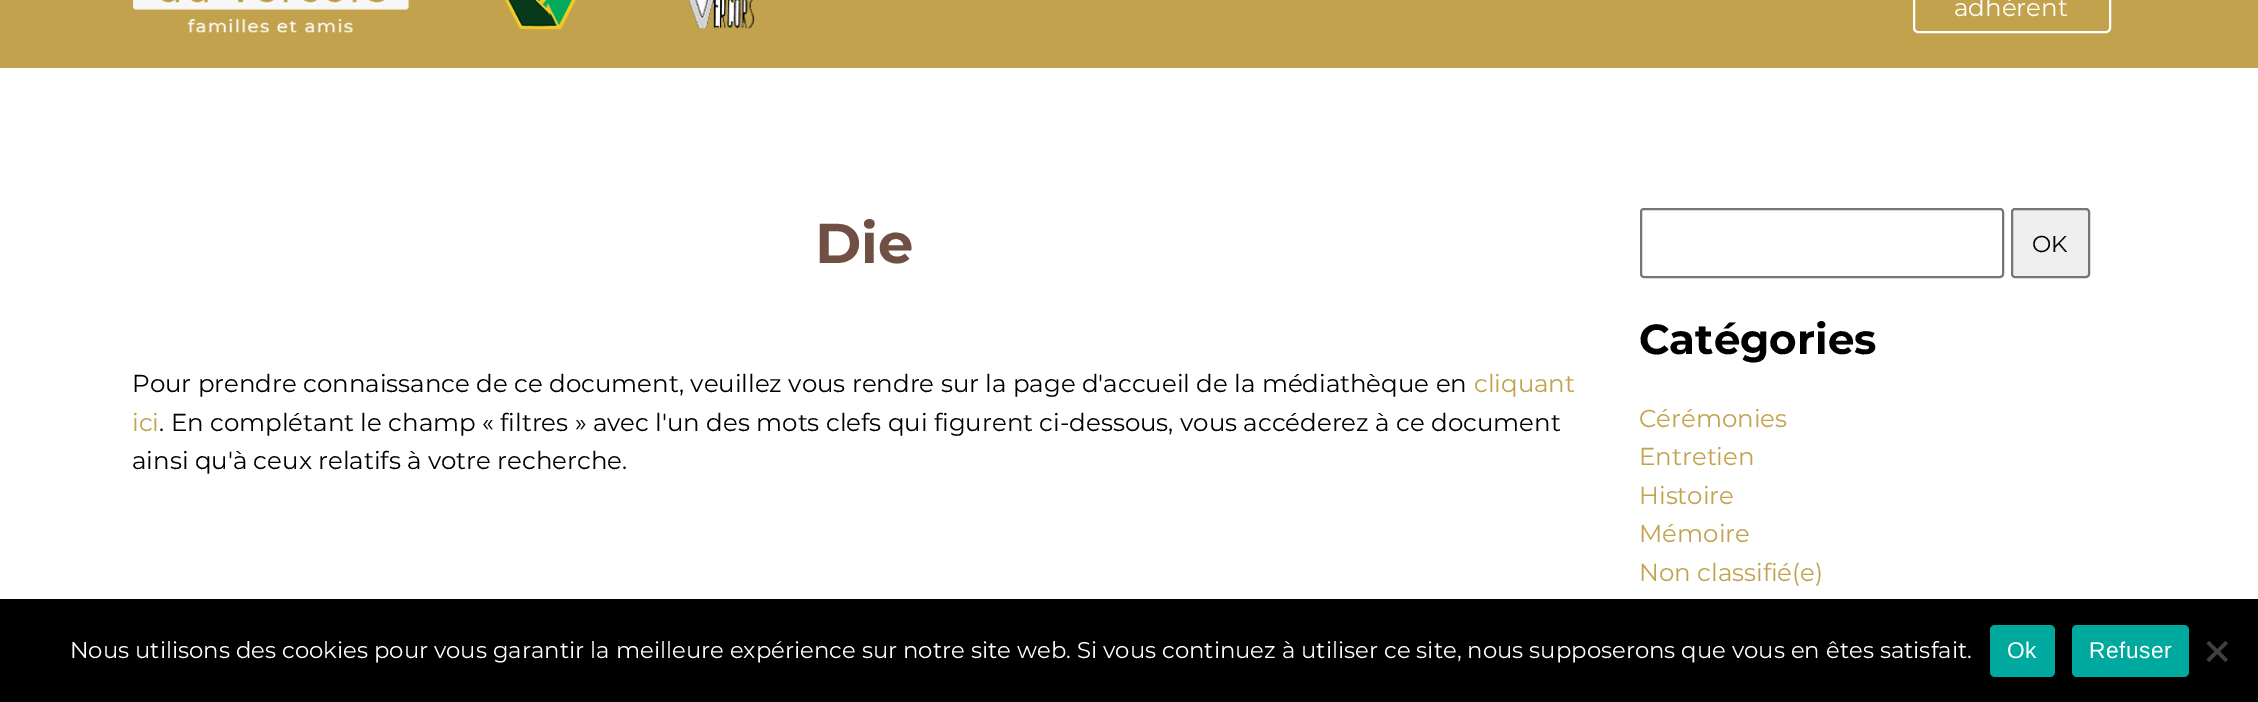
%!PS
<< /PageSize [2258 702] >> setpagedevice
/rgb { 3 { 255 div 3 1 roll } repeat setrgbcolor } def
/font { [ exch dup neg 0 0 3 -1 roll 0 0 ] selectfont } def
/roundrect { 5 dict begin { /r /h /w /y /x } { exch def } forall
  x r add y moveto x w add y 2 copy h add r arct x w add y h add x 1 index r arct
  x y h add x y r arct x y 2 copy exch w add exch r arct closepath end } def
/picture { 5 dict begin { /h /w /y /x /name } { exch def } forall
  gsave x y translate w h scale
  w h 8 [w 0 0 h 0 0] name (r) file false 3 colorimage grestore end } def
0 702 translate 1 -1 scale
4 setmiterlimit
255 255 255 rgb
0 0 2258 702 rectfill
194 162 77 rgb
0 0 2258 68 rectfill
(img/1.rgb) 133 0 622 33 picture
255 255 255 rgb
2 setlinewidth
1914 -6 196 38 4 roundrect stroke
118 118 118 rgb
1641 209 362 68 3 roundrect stroke
239 239 239 rgb
2012 209 77 68 3 roundrect gsave fill grestore
118 118 118 rgb
stroke
0 0 0 rgb
0 599 2258 103 rectfill
0 169 157 rgb
1990 625 65 52 5 roundrect fill
2072 625 117 52 5 roundrect fill
64 64 64 rgb
2225.5 641 moveto 2228 643.5 lineto 2209 662 lineto 2206.5 659.5 lineto closepath fill
2206.5 643.5 moveto 2209 641 lineto 2228 659.5 lineto 2225.5 662 lineto closepath fill
/Montserrat-Regular 24.5 font
255 255 255 rgb
1954 16 moveto (adhérent) show
/Montserrat-Bold 56 font
112 80 69 rgb
815 263 moveto (Die) show
/Montserrat-Regular 24.5 font
0 0 0 rgb
132 392 moveto (Pour prendre connaissance de ce document, veuillez vous rendre sur la page d'accueil de la médiathèque en) show
194 162 77 rgb
1474 392 moveto (cliquant) show
132 431 moveto (ici) show
0 0 0 rgb
159 431 moveto (. En complétant le champ « filtres » avec l'un des mots clefs qui figurent ci-dessous, vous accéderez à ce document) show
132 469 moveto (ainsi qu'à ceux relatifs à votre recherche.) show
/Montserrat-Regular 23 font
2032 252 moveto (OK) show
/Montserrat-Bold 42 font
1639 354 moveto (Catégories) show
/Montserrat-Regular 24.5 font
194 162 77 rgb
[
  [(Cérémonies) 1639 427]
  [(Entretien) 1639 465]
  [(Histoire) 1639 504]
  [(Mémoire) 1639 542]
  [(Non classifié\(e\)) 1639 581]
] { aload pop moveto show } forall
/Montserrat-Regular 22.75 font
255 255 255 rgb
70 658 moveto (Nous utilisons des cookies pour vous garantir la meilleure expérience sur notre site web. Si vous continuez à utiliser ce site, nous supposerons que vous en êtes satisfait.) show
/LiberationSans-Regular 22.75 font
2007 658 moveto 0.5 0 (Ok) ashow
2089 658 moveto 0.5 0 (Refuser) ashow
showpage
